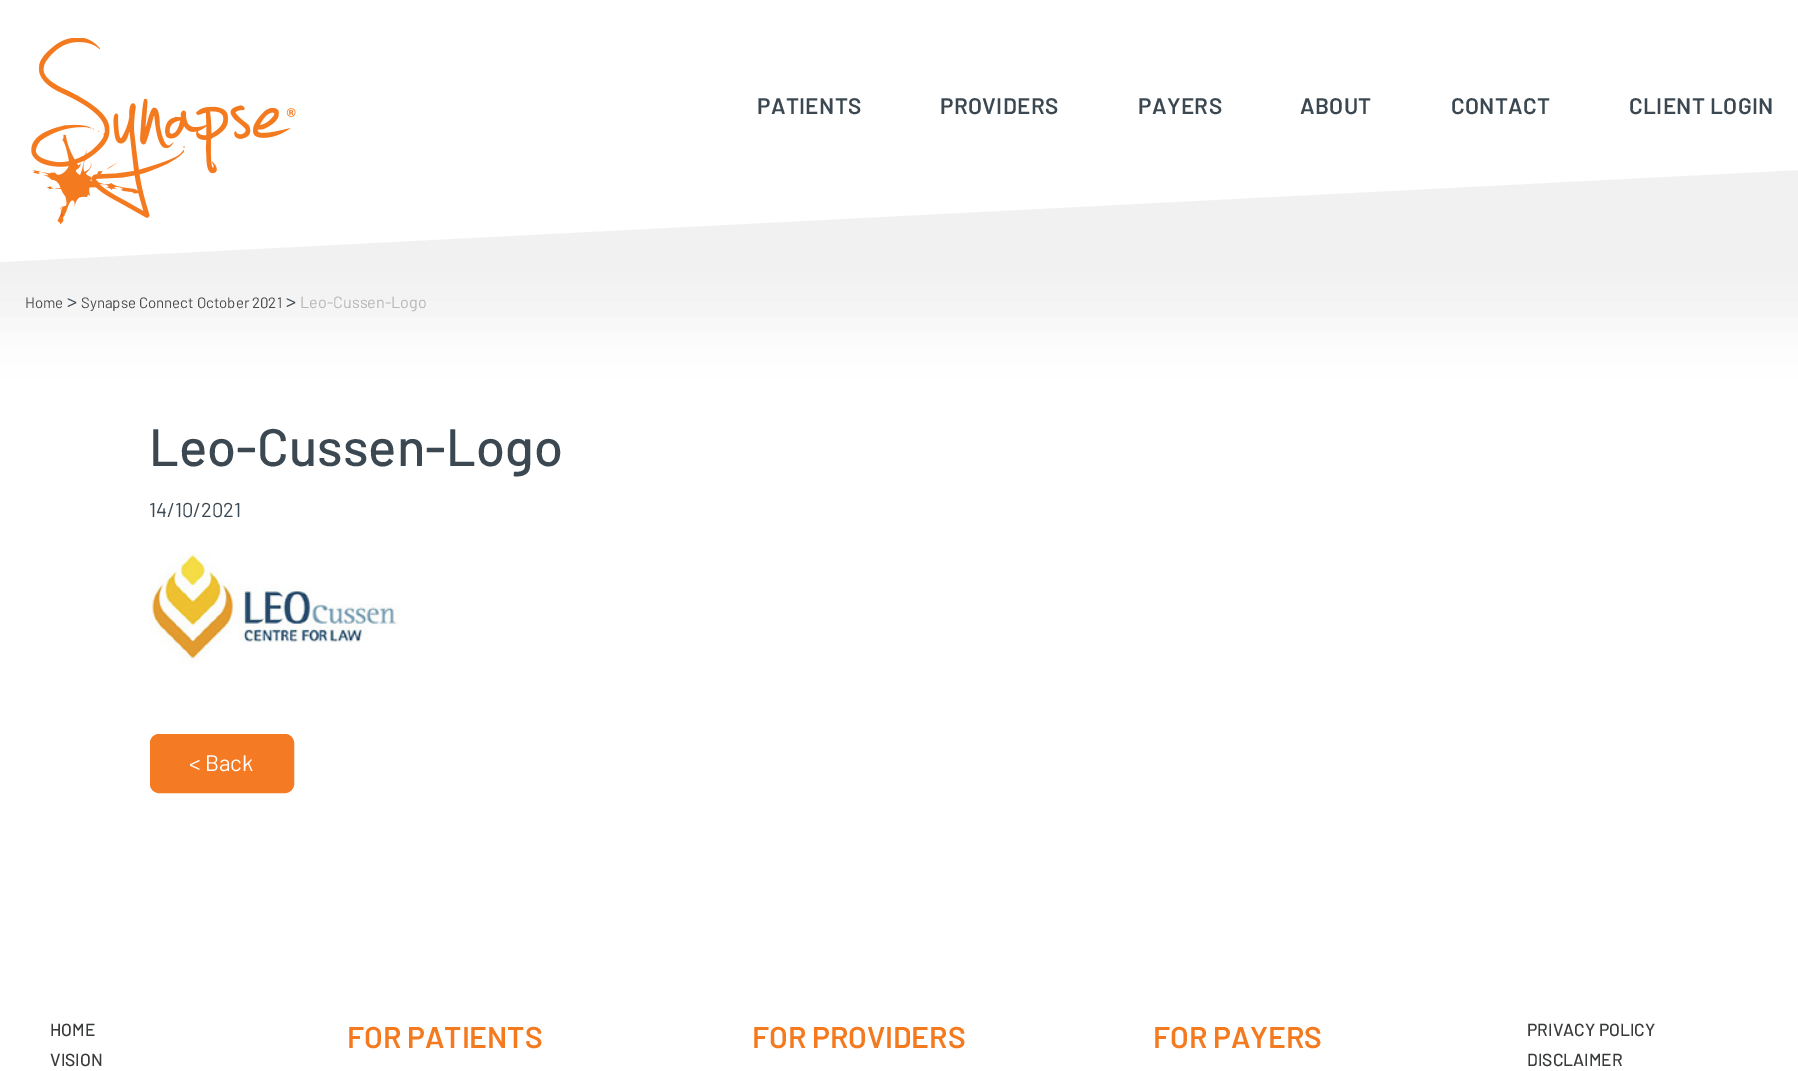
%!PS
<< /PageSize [1798 1071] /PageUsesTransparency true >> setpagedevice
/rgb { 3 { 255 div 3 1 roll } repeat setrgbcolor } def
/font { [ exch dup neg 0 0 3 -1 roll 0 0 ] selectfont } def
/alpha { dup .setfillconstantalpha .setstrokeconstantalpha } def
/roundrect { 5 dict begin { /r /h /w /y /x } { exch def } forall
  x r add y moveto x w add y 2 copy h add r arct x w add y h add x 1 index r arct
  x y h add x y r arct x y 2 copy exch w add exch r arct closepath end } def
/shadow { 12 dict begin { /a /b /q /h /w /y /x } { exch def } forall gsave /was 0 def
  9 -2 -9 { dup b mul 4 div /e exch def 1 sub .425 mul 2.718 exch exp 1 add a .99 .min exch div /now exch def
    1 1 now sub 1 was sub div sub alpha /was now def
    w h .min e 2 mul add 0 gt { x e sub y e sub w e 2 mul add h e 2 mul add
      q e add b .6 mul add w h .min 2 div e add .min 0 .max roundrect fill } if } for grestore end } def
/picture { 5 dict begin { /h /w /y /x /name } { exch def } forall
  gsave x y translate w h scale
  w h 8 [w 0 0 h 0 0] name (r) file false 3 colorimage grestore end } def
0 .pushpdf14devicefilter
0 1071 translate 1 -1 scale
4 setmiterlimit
255 255 255 rgb
0 0 1798 1071 rectfill
0 0 0 rgb
-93 -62 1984 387 0 31 0.05 shadow
255 255 255 rgb
0 0 1798 138 rectfill
0 138 moveto 0 262 lineto 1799 170 lineto 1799 138 lineto closepath fill
(img/1.rgb) 31 38 265 187 picture
(img/2.rgb) 150 552 250 112 picture
244 122 35 rgb
150.5 734.5 143 58 8.5 roundrect gsave fill grestore
stroke
/Barlow-SemiBold 22.5 font
59 72 82 rgb
757 114 moveto 0.4 0 (PATIENTS) ashow
940 114 moveto 0.4 0 (PROVIDERS) ashow
1138 114 moveto 0.4 0 (PAYERS) ashow
1300 114 moveto 0.4 0 (ABOUT) ashow
1451 114 moveto 0.4 0 (CONTACT) ashow
1629 114 moveto 0.4 0 (CLIENT LOGIN) ashow
/Barlow-Regular 15 font
74 74 74 rgb
25 308 moveto (Home) show
/Barlow-Regular 20 font
59 72 82 rgb
67 308 moveto (>) show
/Barlow-Regular 15 font
74 74 74 rgb
81 308 moveto (Synapse Connect October 2021) show
/Barlow-Regular 20 font
59 72 82 rgb
286 308 moveto (>) show
/Barlow-Regular 16.25 font
183 183 183 rgb
300 308 moveto (Leo-Cussen-Logo) show
/Barlow-Medium 52.5 font
59 72 82 rgb
149 466 moveto (Leo-Cussen-Logo) show
/Barlow-Regular 20 font
149 517 moveto (14/10/2021) show
/Barlow-Regular 22.5 font
255 255 255 rgb
189 771 moveto (< Back) show
/Barlow-Medium 17.5 font
57 58 59 rgb
50 1036 moveto (HOME) show
50 1066 moveto (VISION) show
/Barlow-SemiBold 30 font
244 122 32 rgb
[
  [(FOR PATIENTS) 347 1048]
  [(FOR PROVIDERS) 752 1048]
  [(FOR PAYERS) 1153 1048]
] { aload pop moveto show } forall
/Barlow-Medium 17.5 font
57 58 59 rgb
1527 1036 moveto (PRIVACY POLICY) show
1527 1066 moveto (DISCLAIMER) show
.poppdf14devicefilter showpage
